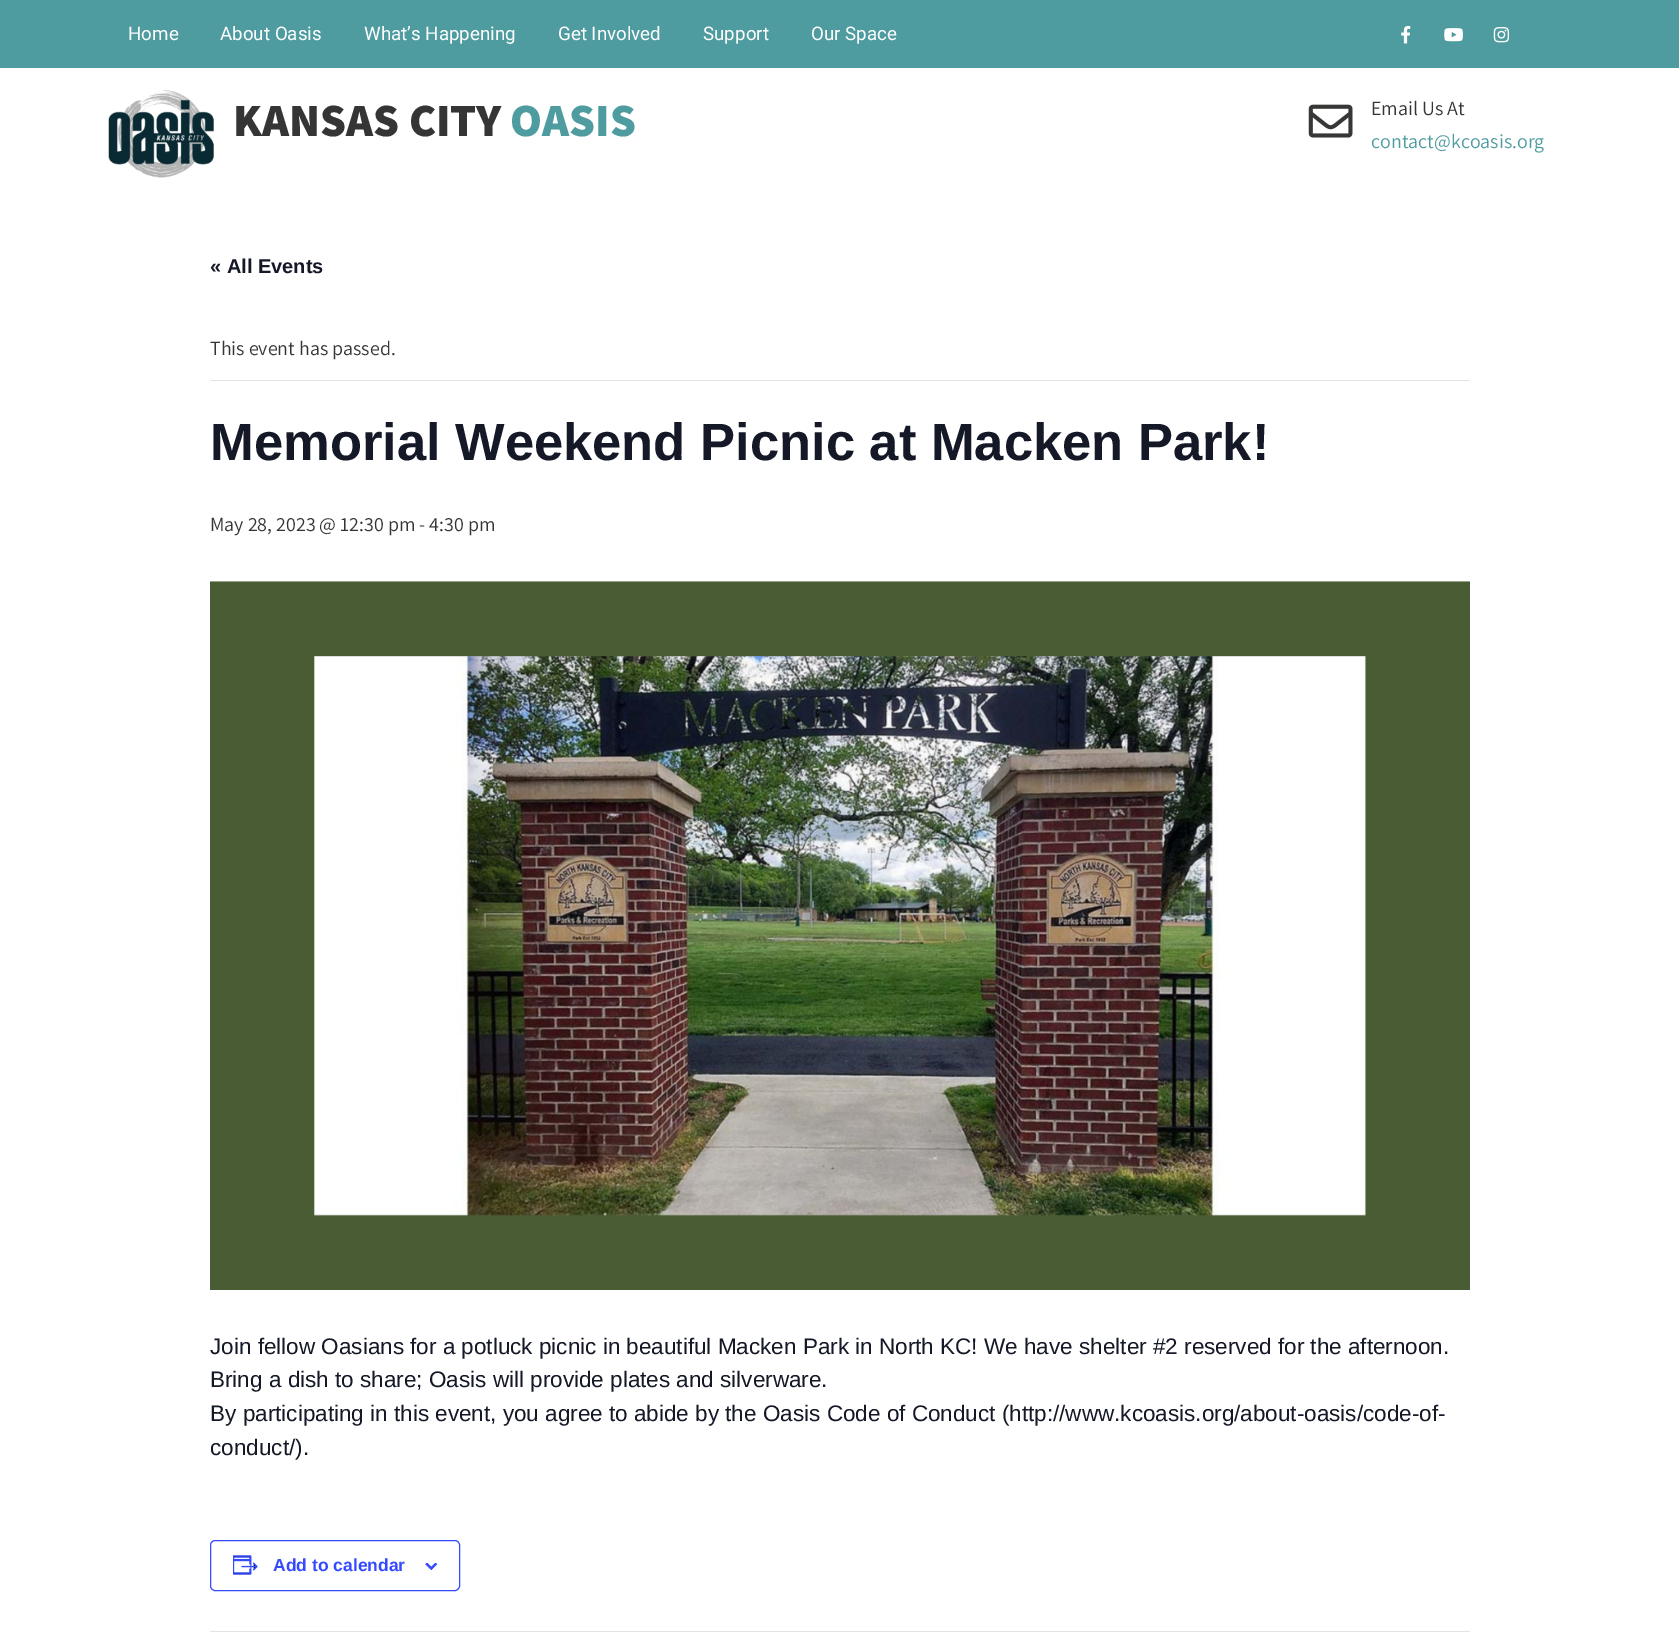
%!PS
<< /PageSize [1679 1647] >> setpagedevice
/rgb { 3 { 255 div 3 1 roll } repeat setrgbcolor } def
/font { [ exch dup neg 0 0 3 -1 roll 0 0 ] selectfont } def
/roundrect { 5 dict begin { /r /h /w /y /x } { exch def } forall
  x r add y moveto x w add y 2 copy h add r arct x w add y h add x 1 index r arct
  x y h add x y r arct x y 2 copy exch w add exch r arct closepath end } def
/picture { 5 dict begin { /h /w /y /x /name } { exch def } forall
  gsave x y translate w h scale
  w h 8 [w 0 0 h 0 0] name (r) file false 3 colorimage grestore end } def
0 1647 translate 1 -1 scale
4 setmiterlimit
255 255 255 rgb
0 0 1679 1647 rectfill
78 156 160 rgb
0 0 1679 68 rectfill
(img/1.rgb) 1401 25 10 19 picture
(img/2.rgb) 1444 28 19 14 picture
(img/3.rgb) 1493 27 17 16 picture
(img/4.rgb) 108 90 106 88 picture
(img/5.rgb) 1308 104 45 34 picture
228 228 228 rgb
210 380 1260 1 rectfill
(img/6.rgb) 210 581 1260 709 picture
51 74 255 rgb
210.5 1540.5 249 50 4.5 roundrect stroke
(img/7.rgb) 233 1555 25 20 picture
(img/8.rgb) 425 1563 13 7 picture
228 228 228 rgb
210 1631 1260 1 rectfill
/Roboto-Regular 18.75 font
255 255 255 rgb
[
  [(Home) 128 40]
  [(About Oasis) 220 40]
  [(What’s Happening) 364 40]
  [(Get Involved) 558 40]
  [(Support) 703 40]
  [(Our Space) 811 40]
] { aload pop moveto show } forall
/Assistant-ExtraBold 46.25 font
53 53 53 rgb
233 136 moveto (KANSAS CITY) show
78 156 160 rgb
510 136 moveto (OASIS) show
/Assistant-ExtraLight 20 font
53 53 53 rgb
1371 115 moveto (Email Us At) show
78 156 160 rgb
1371 148 moveto (contact@kcoasis.org) show
/LiberationSans-Bold 20 font
20 24 39 rgb
210 273 moveto (« All Events) show
/Assistant-ExtraLight 20 font
53 53 53 rgb
210 355 moveto (This event has passed.) show
/LiberationSans-Bold 52.5 font
20 24 39 rgb
210 460 moveto (Memorial Weekend Picnic at Macken Park!) show
/Assistant-ExtraLight 20 font
53 53 53 rgb
210 531 moveto (May 28, 2023 @ 12:30 pm - 4:30 pm) show
/LiberationSans-Regular 22.5 font
20 24 39 rgb
[
  [(Join fellow Oasians for a potluck picnic in beautiful Macken Park in North KC! We have shelter #2 reserved for the afternoon.) 210 1354]
  [(Bring a dish to share; Oasis will provide plates and silverware.) 210 1387]
  [(By participating in this event, you agree to abide by the Oasis Code of Conduct \(http://www.kcoasis.org/about-oasis/code-of-) 210 1421]
  [(conduct/\).) 210 1455]
] { aload pop moveto show } forall
/LiberationSans-Bold 17.5 font
51 74 255 rgb
273 1571 moveto (Add to calendar) show
showpage
